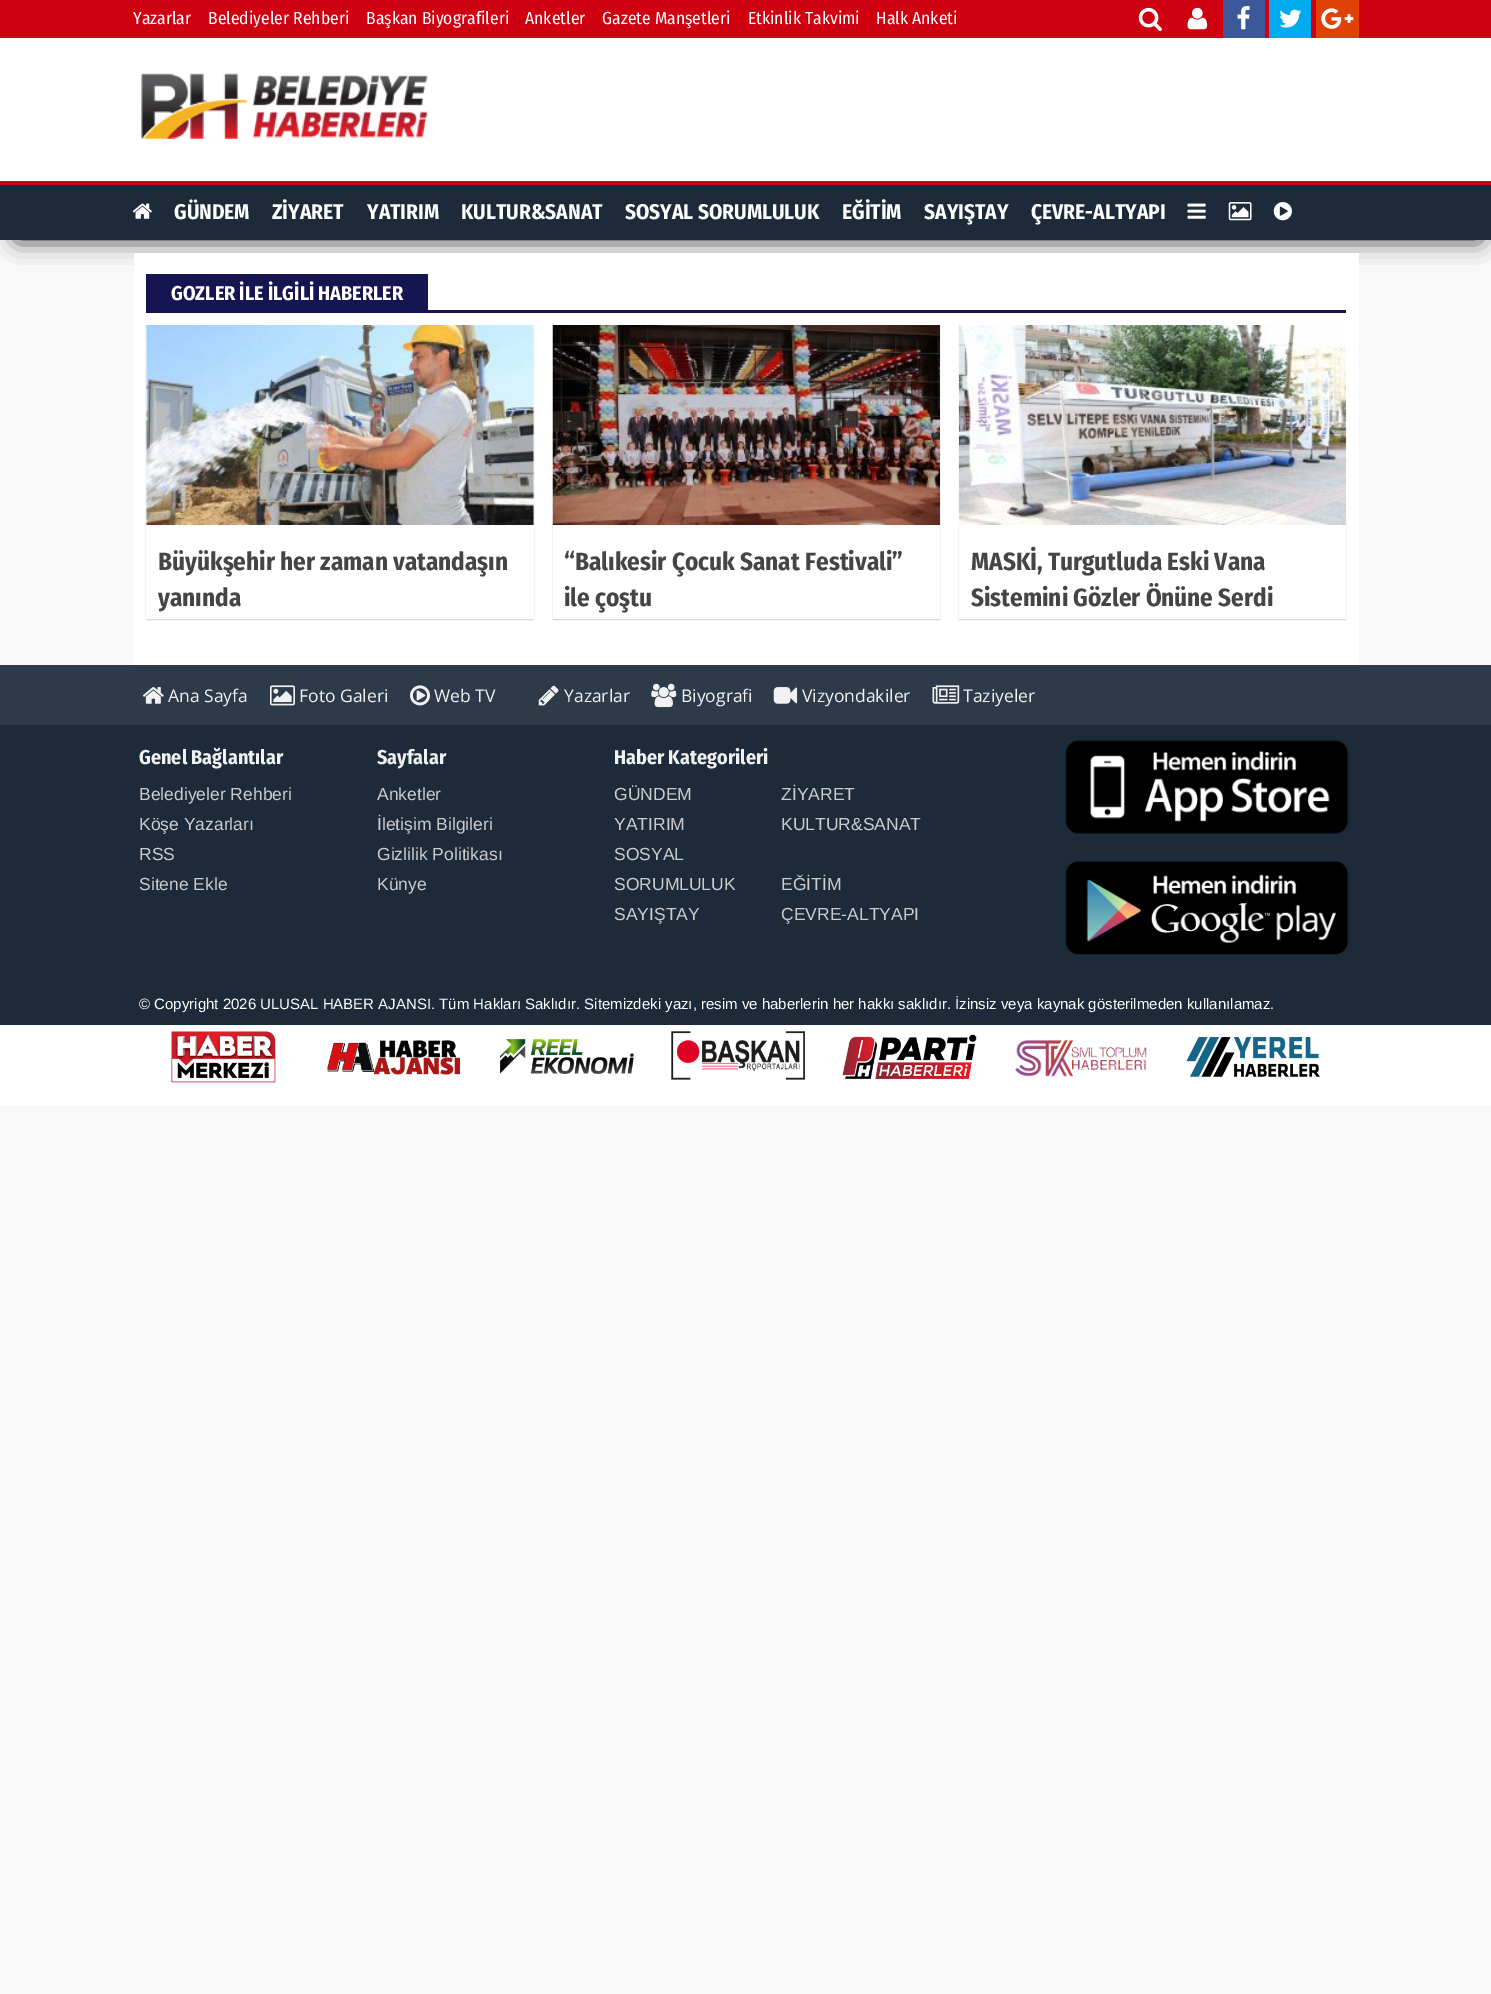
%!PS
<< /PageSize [1491 1994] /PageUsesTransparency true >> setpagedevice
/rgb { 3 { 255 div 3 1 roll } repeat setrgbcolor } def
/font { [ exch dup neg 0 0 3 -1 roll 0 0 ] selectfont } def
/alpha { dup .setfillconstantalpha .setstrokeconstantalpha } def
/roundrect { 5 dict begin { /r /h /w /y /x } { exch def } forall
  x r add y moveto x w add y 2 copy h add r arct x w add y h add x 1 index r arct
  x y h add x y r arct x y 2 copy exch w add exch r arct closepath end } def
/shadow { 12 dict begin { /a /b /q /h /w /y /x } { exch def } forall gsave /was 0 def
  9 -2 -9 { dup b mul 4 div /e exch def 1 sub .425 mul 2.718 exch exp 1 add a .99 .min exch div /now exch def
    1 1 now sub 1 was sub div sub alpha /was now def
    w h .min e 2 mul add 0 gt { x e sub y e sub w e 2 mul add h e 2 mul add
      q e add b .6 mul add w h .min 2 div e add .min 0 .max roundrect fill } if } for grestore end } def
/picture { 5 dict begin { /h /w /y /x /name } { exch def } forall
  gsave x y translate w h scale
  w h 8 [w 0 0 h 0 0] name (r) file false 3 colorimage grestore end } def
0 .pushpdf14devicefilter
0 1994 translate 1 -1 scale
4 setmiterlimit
248 248 248 rgb
0 0 1491 1994 rectfill
207 0 15 rgb
0 0 1491 38 rectfill
(img/1.rgb) 1138 7 24 25 picture
(img/2.rgb) 1187 7 21 23 picture
59 89 152 rgb
1223 0 42 38 rectfill
(img/3.rgb) 1237 6 13 24 picture
0 172 237 rgb
1269 0 42 38 rectfill
(img/4.rgb) 1279 9 23 19 picture
225 65 7 rgb
1316 0 43 38 rectfill
(img/5.rgb) 1321 8 33 21 picture
255 255 255 rgb
0 38 1491 143 rectfill
(img/6.rgb) 141 73 287 66 picture
0 0 0 rgb
18 209 1461 29 0 12 1 shadow
28 42 57 rgb
0 185 1491 55 rectfill
207 0 15 rgb
0 181 1491 4 rectfill
(img/7.rgb) 132 203 20 16 picture
(img/8.rgb) 1187 203 19 16 picture
(img/9.rgb) 1228 202 24 19 picture
(img/10.rgb) 1273 202 19 19 picture
[
  [134 253 1225 412 255 255 255]
  [146 310 1200 3 21 21 81]
  [146 274 282 36 21 21 81]
] { aload pop rgb rectfill } forall
211 211 211 rgb
146 326 388 294 0 0.5 1 shadow
255 255 255 rgb
146 325 388 294 rectfill
(img/11.rgb) 146 325 388 200 picture
211 211 211 rgb
553 326 387 294 0 0.5 1 shadow
255 255 255 rgb
553 525 387 94 rectfill
(img/12.rgb) 552 325 388 200 picture
211 211 211 rgb
959 326 387 294 0 0.5 1 shadow
255 255 255 rgb
959 525 387 94 rectfill
(img/13.rgb) 958 325 389 200 picture
44 58 73 rgb
0 665 1491 60 rectfill
(img/14.rgb) 142 687 22 17 picture
(img/15.rgb) 270 685 25 21 picture
(img/16.rgb) 410 685 20 21 picture
(img/17.rgb) 538 685 21 21 picture
(img/18.rgb) 651 683 26 25 picture
(img/19.rgb) 773 687 25 17 picture
(img/20.rgb) 932 685 28 19 picture
28 42 57 rgb
0 725 1491 300 rectfill
(img/21.rgb) 1065 740 284 94 picture
(img/22.rgb) 1065 861 284 94 picture
255 255 255 rgb
0 1025 1491 81 rectfill
(img/23.rgb) 171 1031 105 52 picture
(img/24.rgb) 327 1040 133 35 picture
(img/25.rgb) 500 1039 134 35 picture
(img/26.rgb) 671 1031 134 49 picture
(img/27.rgb) 842 1034 135 45 picture
(img/28.rgb) 1015 1040 132 37 picture
(img/29.rgb) 1186 1037 134 40 picture
/FiraSansCondensed-Regular 17.5 font
[
  [(Yazarlar) 133 24]
  [(Belediyeler Rehberi) 208 24]
  [(Başkan Biyografileri) 366 24]
  [(Anketler) 525 24]
  [(Gazete Manşetleri) 602 24]
  [(Etkinlik Takvimi) 748 24]
  [(Halk Anketi) 876 24]
] { aload pop moveto show } forall
/FiraSansCondensed-Bold 21.25 font
[
  [(GÜNDEM) 174 219]
  [(ZİYARET) 272 219]
  [(YATIRIM) 367 219]
  [(KULTUR&SANAT) 461 219]
  [(SOSYAL SORUMLULUK) 625 219]
  [(EĞİTİM) 842 219]
  [(SAYIŞTAY) 924 219]
  [(ÇEVRE-ALTYAPI) 1031 219]
] { aload pop moveto show } forall
/FiraSansCondensed-Bold 20 font
171 300 moveto (GOZLER İLE İLGİLİ HABERLER) show
/FiraSansCondensed-Bold 25 font
69 69 69 rgb
[
  [(Büyükşehir her zaman vatandaşın) 158 570]
  [(yanında) 158 606]
  [(“Balıkesir Çocuk Sanat Festivali”) 564 570]
  [(ile çoştu) 564 606]
  [(MASKİ, Turgutluda Eski Vana) 971 570]
  [(Sistemini Gözler Önüne Serdi) 971 606]
] { aload pop moveto show } forall
/OpenSans-Regular 17.5 font
241 241 241 rgb
[
  [(Ana Sayfa) 168 702]
  [(Foto Galeri) 299 702]
  [(Web TV) 434 702]
  [(Yazarlar) 564 702]
  [(Biyografi) 681 702]
  [(Vizyondakiler) 802 702]
  [(Taziyeler) 963 702]
] { aload pop moveto show } forall
/FiraSansCondensed-Bold 20 font
139 764 moveto (Genel Bağlantılar) show
/LiberationSans-Regular 17.5 font
204 204 204 rgb
[
  [(Belediyeler Rehberi) 139 800]
  [(Köşe Yazarları) 139 830]
  [(RSS) 139 860]
  [(Sitene Ekle) 139 890]
] { aload pop moveto show } forall
/FiraSansCondensed-Bold 20 font
241 241 241 rgb
377 764 moveto (Sayfalar) show
/LiberationSans-Regular 17.5 font
204 204 204 rgb
[
  [(Anketler) 377 800]
  [(İletişim Bilgileri) 377 830]
  [(Gizlilik Politikası) 377 860]
  [(Künye) 377 890]
] { aload pop moveto show } forall
/FiraSansCondensed-Bold 20 font
241 241 241 rgb
614 764 moveto (Haber Kategorileri) show
/LiberationSans-Regular 17.5 font
204 204 204 rgb
[
  [(GÜNDEM) 614 800]
  [(ZİYARET) 781 800]
  [(YATIRIM) 614 830]
  [(KULTUR&SANAT) 781 830]
  [(SOSYAL) 614 860]
  [(SORUMLULUK) 614 890]
  [(EĞİTİM) 781 890]
  [(SAYIŞTAY) 614 920]
  [(ÇEVRE-ALTYAPI) 781 920]
] { aload pop moveto show } forall
/LiberationSans-Regular 15 font
255 255 255 rgb
139 1009 moveto (© Copyright 2026 ULUSAL HABER AJANSI. Tüm Hakları Saklıdır. Sitemizdeki yazı, resim ve haberlerin her hakkı saklıdır. İzinsiz veya kaynak gösterilmeden kullanılamaz.) show
.poppdf14devicefilter showpage
